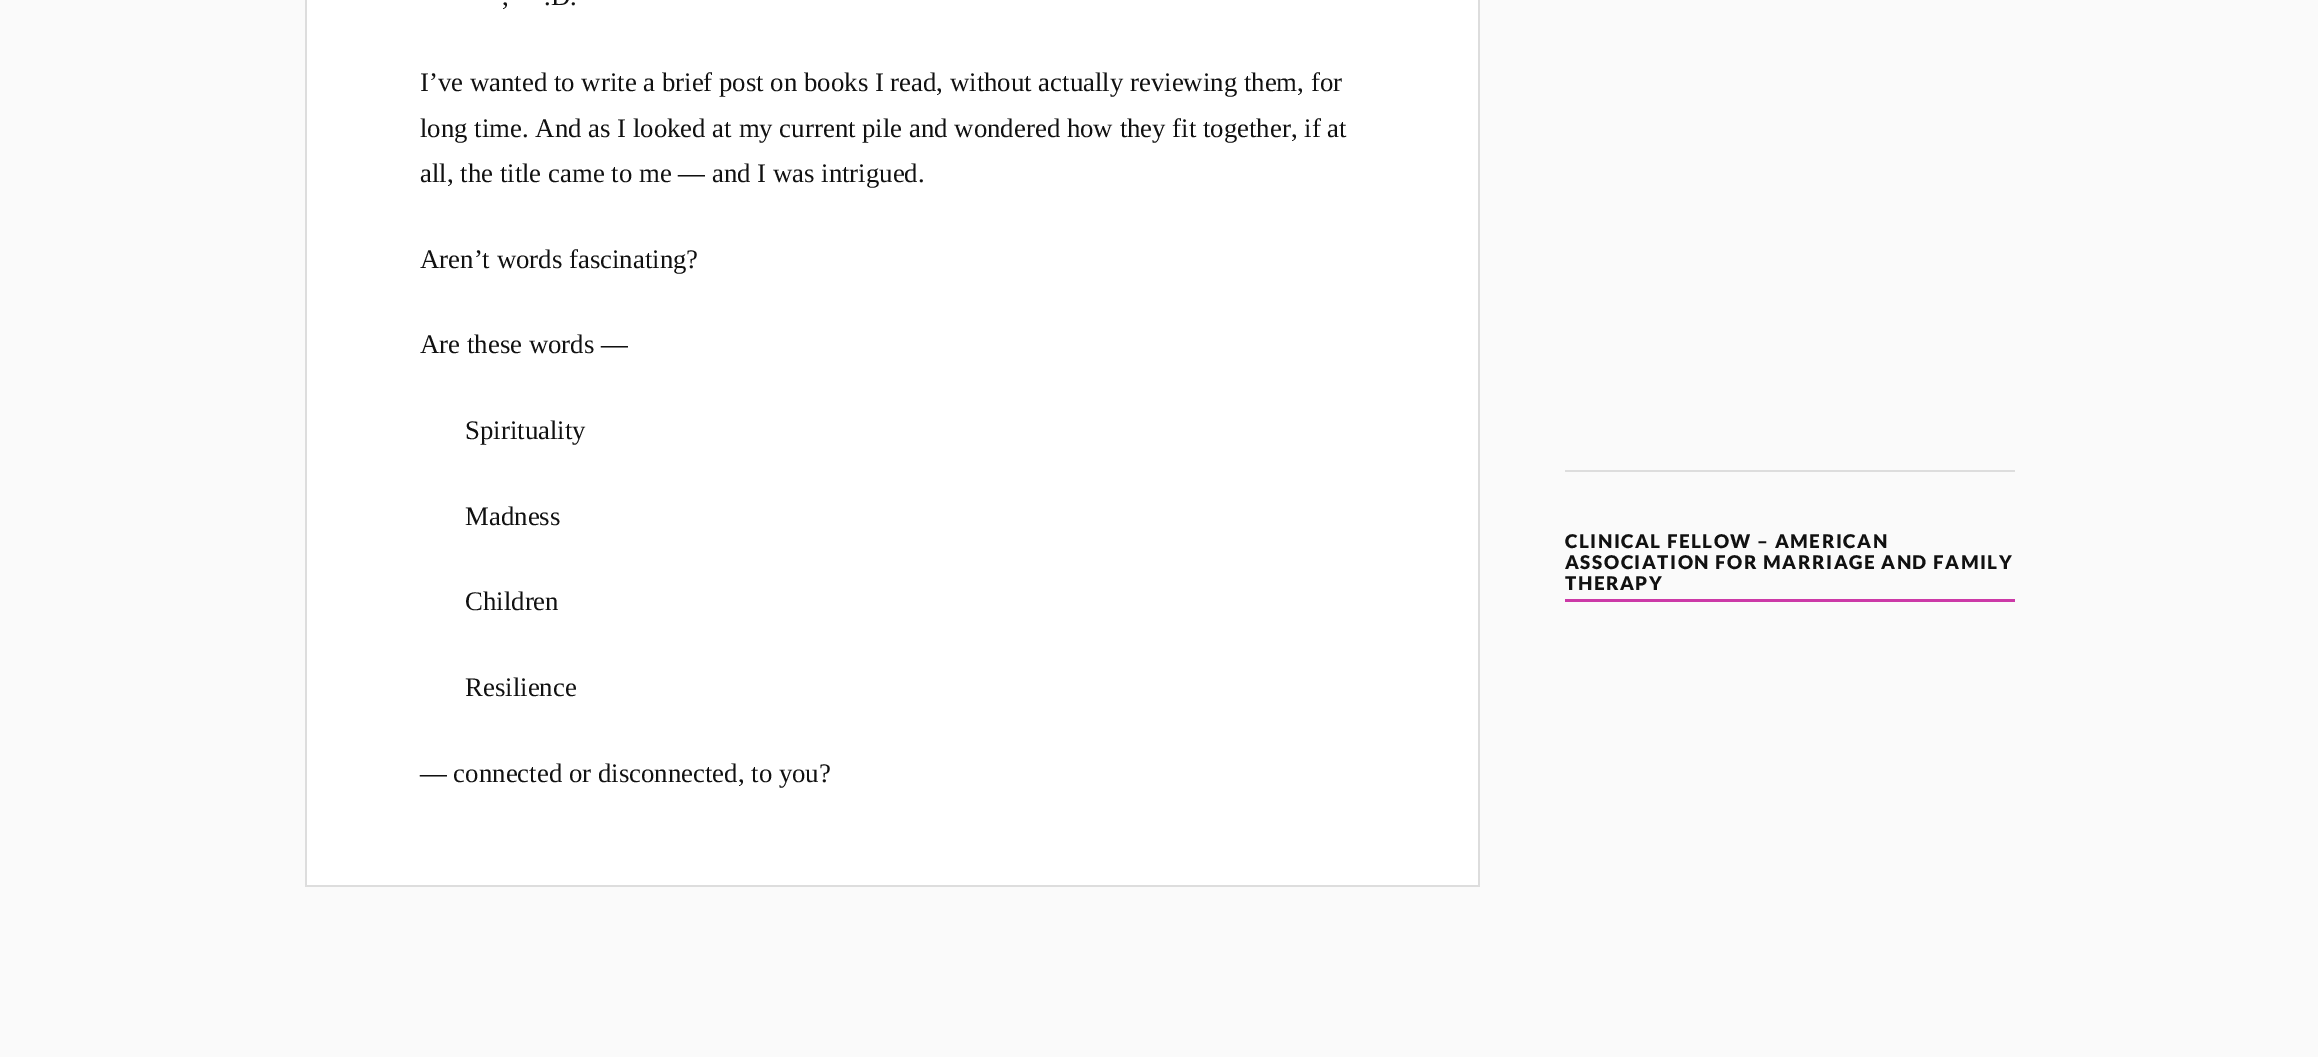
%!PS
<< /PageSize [2318 1057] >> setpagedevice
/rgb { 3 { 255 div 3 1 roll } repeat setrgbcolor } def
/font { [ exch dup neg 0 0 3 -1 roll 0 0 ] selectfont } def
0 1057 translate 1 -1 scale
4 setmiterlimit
250 250 250 rgb
0 0 2318 1057 rectfill
[
  [307 0 1171 885 255 255 255]
  [1478 0 2 887 221 221 221]
  [305 885 1174 2 221 221 221]
  [305 0 2 887 221 221 221]
  [1565 470 450 2 221 221 221]
  [1565 599 450 3 204 57 167]
] { aload pop rgb rectfill } forall
/LiberationSerif-Regular 26.8 font
17 17 17 rgb
[
  [(,) 502 5]
  [(.D.) 544 5]
  [(I’ve wanted to write a brief post on books I read, without actually reviewing them, for) 420 91]
  [(long time. And as I looked at my current pile and wondered how they fit together, if at) 420 137]
  [(all, the title came to me — and I was intrigued.) 420 182]
  [(Aren’t words fascinating?) 420 268]
  [(Are these words —) 420 353]
  [(Spirituality) 465 439]
  [(Madness) 465 525]
  [(Children) 465 610]
  [(Resilience) 465 696]
  [(— connected or disconnected, to you?) 420 782]
] { aload pop moveto show } forall
/Lato-Black 18.9 font
1565 548 moveto 1.5 0 (CLINICAL FELLOW – AMERICAN) ashow
1565 569 moveto 1.5 0 (ASSOCIATION FOR MARRIAGE AND FAMILY) ashow
1565 590 moveto 1.5 0 (THERAPY) ashow
showpage
